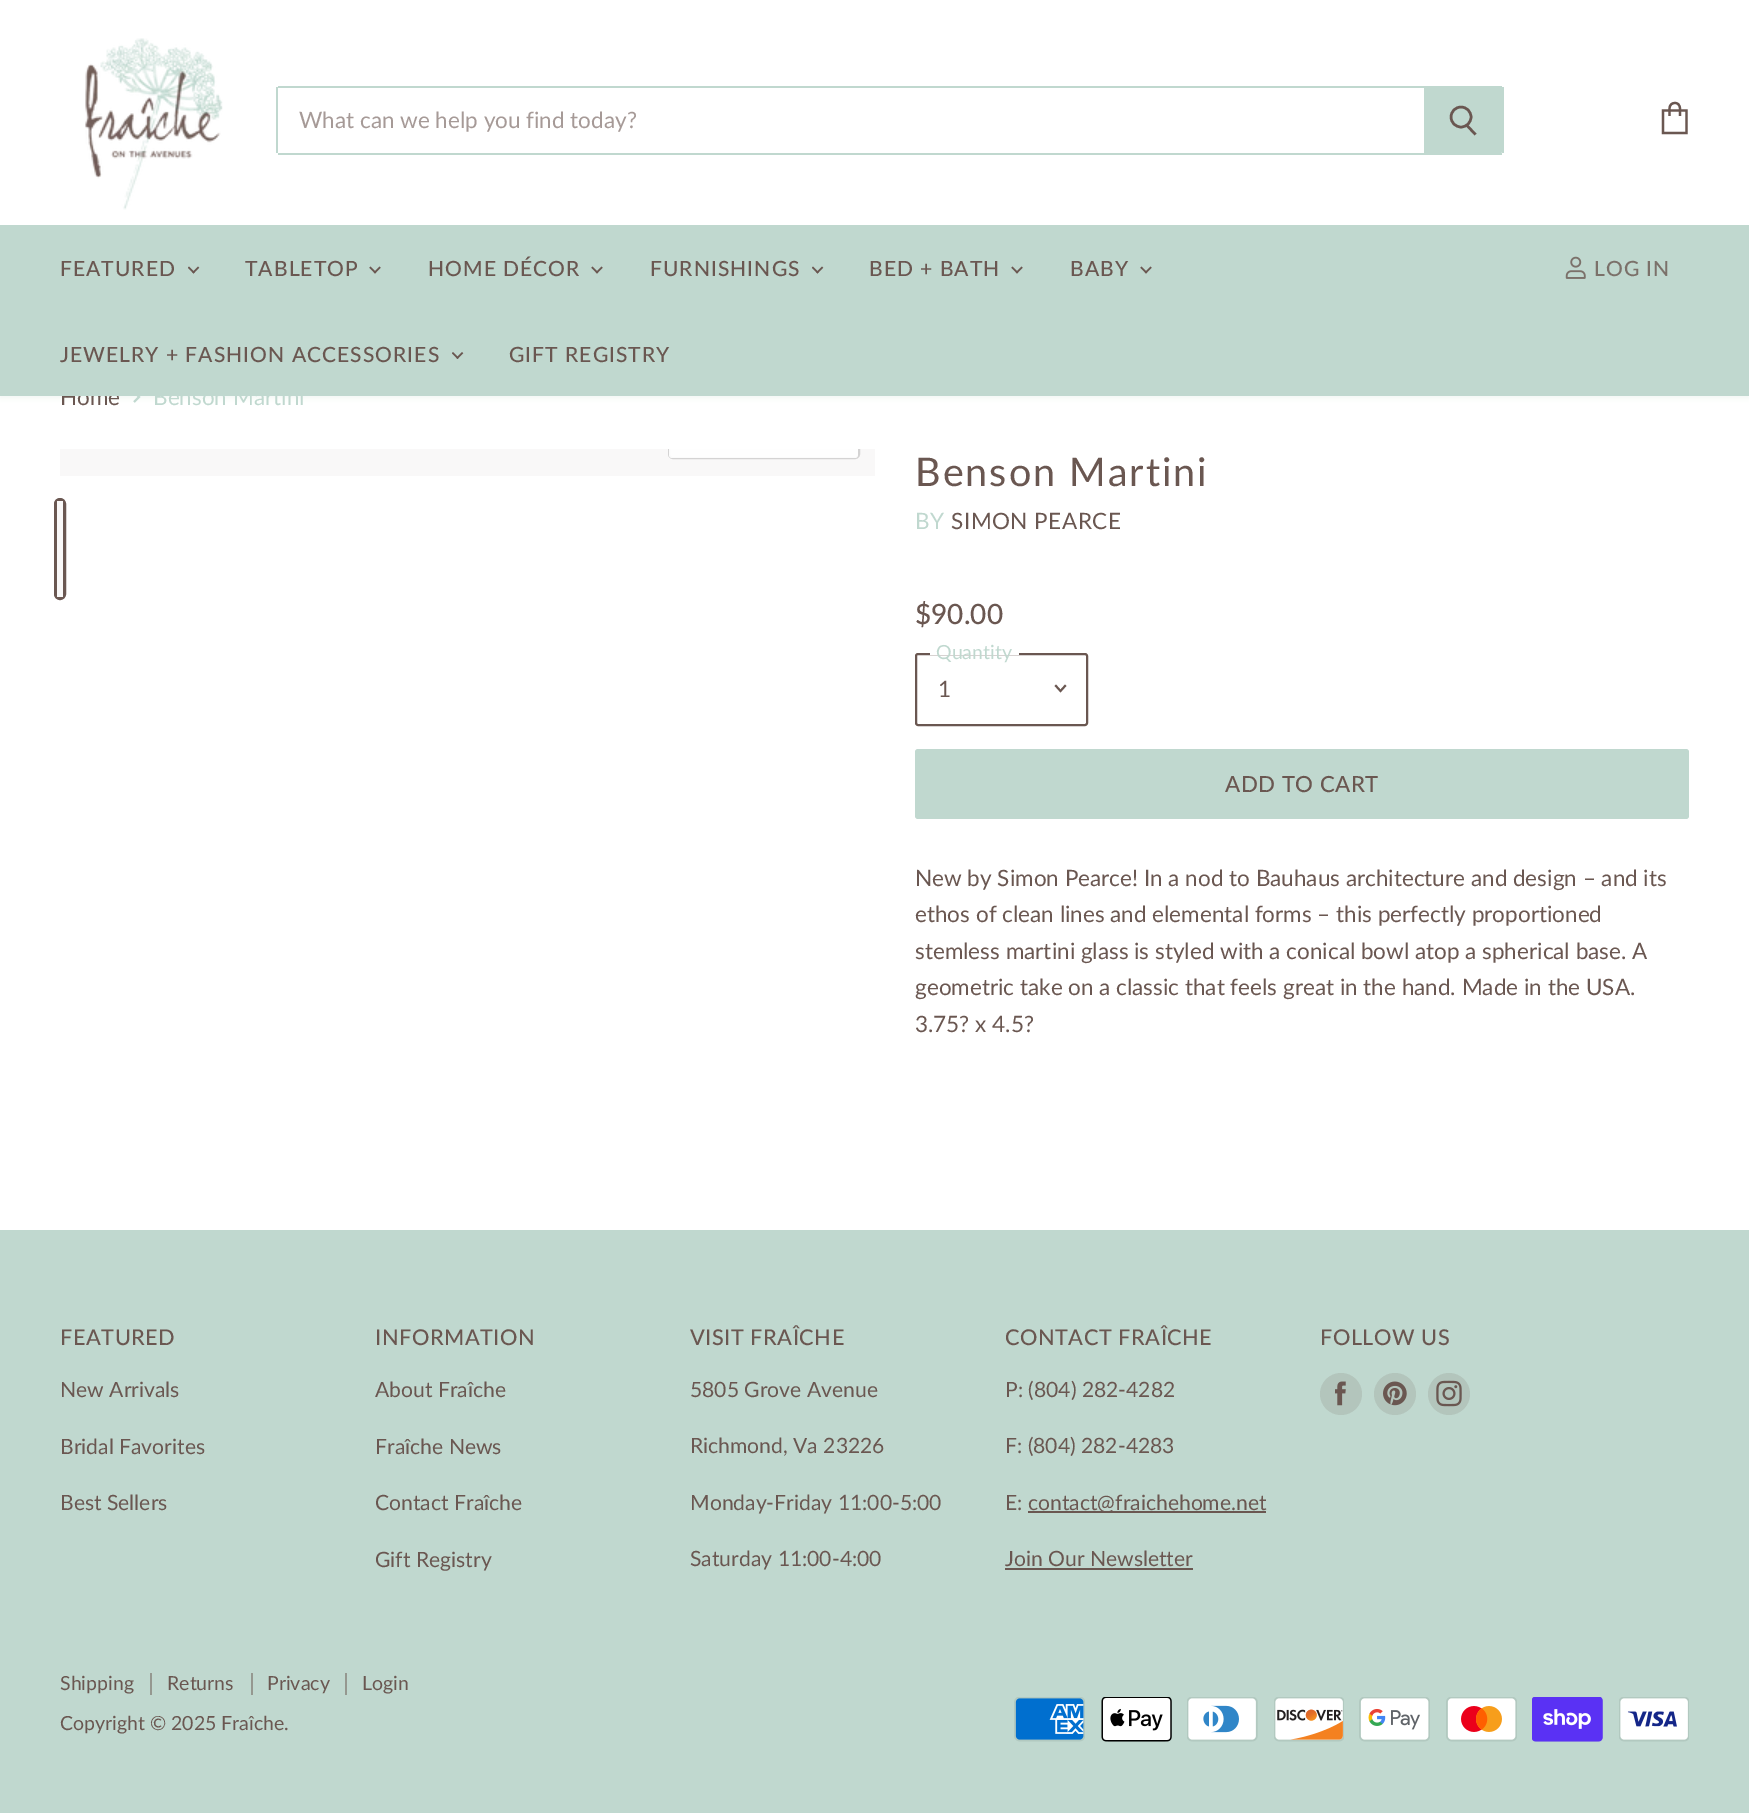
%!PS
<< /PageSize [1749 1813] /PageUsesTransparency true >> setpagedevice
/rgb { 3 { 255 div 3 1 roll } repeat setrgbcolor } def
/font { [ exch dup neg 0 0 3 -1 roll 0 0 ] selectfont } def
/alpha { dup .setfillconstantalpha .setstrokeconstantalpha } def
/circle { newpath 0 360 arc closepath } def
/roundrect { 5 dict begin { /r /h /w /y /x } { exch def } forall
  x r add y moveto x w add y 2 copy h add r arct x w add y h add x 1 index r arct
  x y h add x y r arct x y 2 copy exch w add exch r arct closepath end } def
/shadow { 12 dict begin { /a /b /q /h /w /y /x } { exch def } forall gsave /was 0 def
  9 -2 -9 { dup b mul 4 div /e exch def 1 sub .425 mul 2.718 exch exp 1 add a .99 .min exch div /now exch def
    1 1 now sub 1 was sub div sub alpha /was now def
    w h .min e 2 mul add 0 gt { x e sub y e sub w e 2 mul add h e 2 mul add
      q e add b .6 mul add w h .min 2 div e add .min 0 .max roundrect fill } if } for grestore end } def
/picture { 5 dict begin { /h /w /y /x /name } { exch def } forall
  gsave x y translate w h scale
  w h 8 [w 0 0 h 0 0] name (r) file false 3 colorimage grestore end } def
0 .pushpdf14devicefilter
0 1813 translate 1 -1 scale
4 setmiterlimit
255 255 255 rgb
0 0 1749 1813 rectfill
192 216 207 rgb
1.9 setlinewidth
134 402 moveto 139 397 lineto 134 391.5 lineto stroke
0 2 1749 396 0 3 0.25 shadow
255 255 255 rgb
0 0 1749 225 rectfill
(img/1.rgb) 85 38 138 172 picture
192 216 207 rgb
1424 87 moveto 1500.5 87 lineto 1501.5 87 1502 87.5 1502 88.5 curveto 1502 151.5 lineto 1502 152.5 1501.5 153 1500.5 153 curveto 1424 153 lineto closepath fill
[
  [278 86 1224 2 192 216 207]
  [1502 87 2 66 192 216 207]
  [278 153 1224 2 192 216 207]
] { aload pop rgb rectfill } forall
106 87 81 rgb
2.5 setlinewidth
1475.5 134.5 moveto 1467 125.5 lineto stroke
1461 117 10 circle stroke
192 216 207 rgb
276 87 2 66 rectfill
106 87 81 rgb
2.2 setlinewidth
1663 110.5 moveto 1686.5 110.5 lineto 1686.5 133 lineto 1663 133 lineto closepath 1680 116 moveto 1680 109 lineto 1680 104.5 1677.5 103 1675 103 curveto 1672 103 1669.5 104.5 1669.5 109 curveto 1669.5 116 lineto stroke
249 248 248 rgb
60 449 815 27 rectfill
gsave
60 449 815 27 rectclip
212 211 211 rgb
2 setlinewidth
669 417 190 41 4 roundrect stroke
grestore
0.9 alpha
255 255 255 rgb
669 449 moveto 858 449 lineto 858 455 lineto 858 456.5 856.5 458 855 458 curveto 672 458 lineto 670.5 458 669 456.5 669 455 curveto closepath fill
1 alpha
106 87 81 rgb
3 setlinewidth
55.5 499.5 9 99 4.5 roundrect stroke
249 248 248 rgb
57 501 6 96 rectfill
106 87 81 rgb
2 setlinewidth
916 654 171 71 2 roundrect stroke
255 255 255 rgb
930 653 89 2 rectfill
106 87 81 rgb
1.9 setlinewidth
2 setlinecap
1060.5 691 moveto 1065 686 lineto 1060.5 691 moveto 1056 686 lineto stroke
192 216 207 rgb
915 749 774 70 3 roundrect fill
[
  [0 1230 1749 583 192 216 207]
  [1028 1511 238 2 106 87 81]
  [1005 1568 188 2 106 87 81]
] { aload pop rgb rectfill } forall
179 197 188 rgb
1341 1394 21 circle fill
(img/6.rgb) 1335 1381 11 25 picture
1395 1394 21 circle fill
(img/7.rgb) 1383 1381 24 25 picture
1449 1394 21 circle fill
(img/8.rgb) 1436 1380 26 27 picture
[
  [150 1673 2 22 149 152 144]
  [251 1673 2 22 149 152 144]
  [345 1673 2 22 149 152 144]
] { aload pop rgb rectfill } forall
(img/9.rgb) 1014 1697 71 45 picture
(img/10.rgb) 1101 1697 71 45 picture
(img/11.rgb) 1187 1697 71 45 picture
(img/12.rgb) 1274 1697 70 45 picture
(img/13.rgb) 1359 1697 71 45 picture
(img/14.rgb) 1446 1697 71 45 picture
(img/15.rgb) 1532 1697 71 45 picture
(img/16.rgb) 1619 1697 70 45 picture
/Lato-Regular 22.5 font
166 154 151 rgb
299 128 moveto (What can we help you find today?) show
106 87 81 rgb
60 405 moveto (Home) show
192 216 207 rgb
0 225 1749 171 rectfill
(img/5.rgb) 1565 256 21 23 picture
/Lato-Medium 21 font
123 113 106 rgb
1594 276 moveto 1.05 0 (LOG IN) ashow
106 87 81 rgb
509 362 moveto 1.05 0 (GIFT REGISTRY) ashow
(img/4.rgb) 452 352 12 7 picture
60 362 moveto 1.05 0 (JEWELRY + FASHION ACCESSORIES) ashow
(img/3.rgb) 1140 266 12 8 picture
1070 276 moveto 1.05 0 (BABY) ashow
(img/3.rgb) 1011 266 12 8 picture
869 276 moveto 1.05 0 (BED + BATH) ashow
(img/2.rgb) 812 266 12 8 picture
(img/3.rgb) 591 266 12 8 picture
428 276 moveto 1.05 0 (HOME DÉCOR) ashow
(img/3.rgb) 369 266 12 8 picture
(img/2.rgb) 188 266 12 8 picture
60 276 moveto 1.05 0 (FEATURED) ashow
650 276 moveto 1.05 0 (FURNISHINGS) ashow
245 276 moveto 1.05 0 (TABLETOP) ashow
/Lato-Regular 22.5 font
192 216 207 rgb
153 405 moveto (Benson Martini) show
/Lato-Regular 39.5 font
106 87 81 rgb
915 486 moveto 2 0 (Benson Martini) ashow
/Lato-Regular 22.5 font
192 216 207 rgb
915 529 moveto 0.5 0 (BY) ashow
106 87 81 rgb
951 529 moveto 0.5 0 (SIMON PEARCE) ashow
/Lato-Medium 28 font
915 624 moveto ($90.00) show
/Lato-Regular 19.5 font
192 216 207 rgb
936 659 moveto (Quantity) show
/Lato-Regular 22.5 font
106 87 81 rgb
938 697 moveto (1) show
/Lato-Medium 22.25 font
1225 792 moveto 0.5 0 (ADD TO CART) ashow
/Lato-Regular 22.5 font
[
  [(New by Simon Pearce! In a nod to Bauhaus architecture and design – and its) 915 886]
  [(ethos of clean lines and elemental forms – this perfectly proportioned) 915 922]
  [(stemless martini glass is styled with a conical bowl atop a spherical base. A) 915 959]
  [(geometric take on a classic that feels great in the hand. Made in the USA.) 915 995]
  [(3.75? x 4.5?) 915 1032]
] { aload pop moveto show } forall
/Lato-Medium 21.75 font
60 1345 moveto 0.5 0 (FEATURED) ashow
/Lato-Regular 21.1 font
[
  [(New Arrivals) 60 1397]
  [(Bridal Favorites) 60 1454]
  [(Best Sellers) 60 1510]
] { aload pop moveto show } forall
/Lato-Medium 21.75 font
375 1345 moveto 0.5 0 (INFORMATION) ashow
/Lato-Regular 21.1 font
[
  [(About Fraîche) 375 1397]
  [(Fraîche News) 375 1454]
  [(Contact Fraîche) 375 1510]
  [(Gift Registry) 375 1567]
] { aload pop moveto show } forall
/Lato-Medium 21.75 font
690 1345 moveto 0.5 0 (VISIT FRAÎCHE) ashow
/Lato-Regular 21.1 font
[
  [(5805 Grove Avenue) 690 1397]
  [(Richmond, Va 23226) 690 1453]
  [(Monday-Friday 11:00-5:00) 690 1510]
  [(Saturday 11:00-4:00) 690 1566]
] { aload pop moveto show } forall
/Lato-Medium 21.75 font
1005 1345 moveto 0.5 0 (CONTACT FRAÎCHE) ashow
/Lato-Regular 21.1 font
[
  [(P: \(804\) 282-4282) 1005 1397]
  [(F: \(804\) 282-4283) 1005 1453]
  [(E:) 1005 1510]
  [(contact@fraichehome.net) 1028 1510]
  [(Join Our Newsletter) 1005 1566]
] { aload pop moveto show } forall
/Lato-Medium 21.75 font
1320 1345 moveto 0.5 0 (FOLLOW US) ashow
/Lato-Regular 19.5 font
[
  [(Shipping) 60 1690]
  [(Returns) 167 1690]
  [(Privacy) 267 1690]
  [(Login) 362 1690]
  [(Copyright © 2025 Fraîche.) 60 1730]
] { aload pop moveto show } forall
.poppdf14devicefilter showpage
